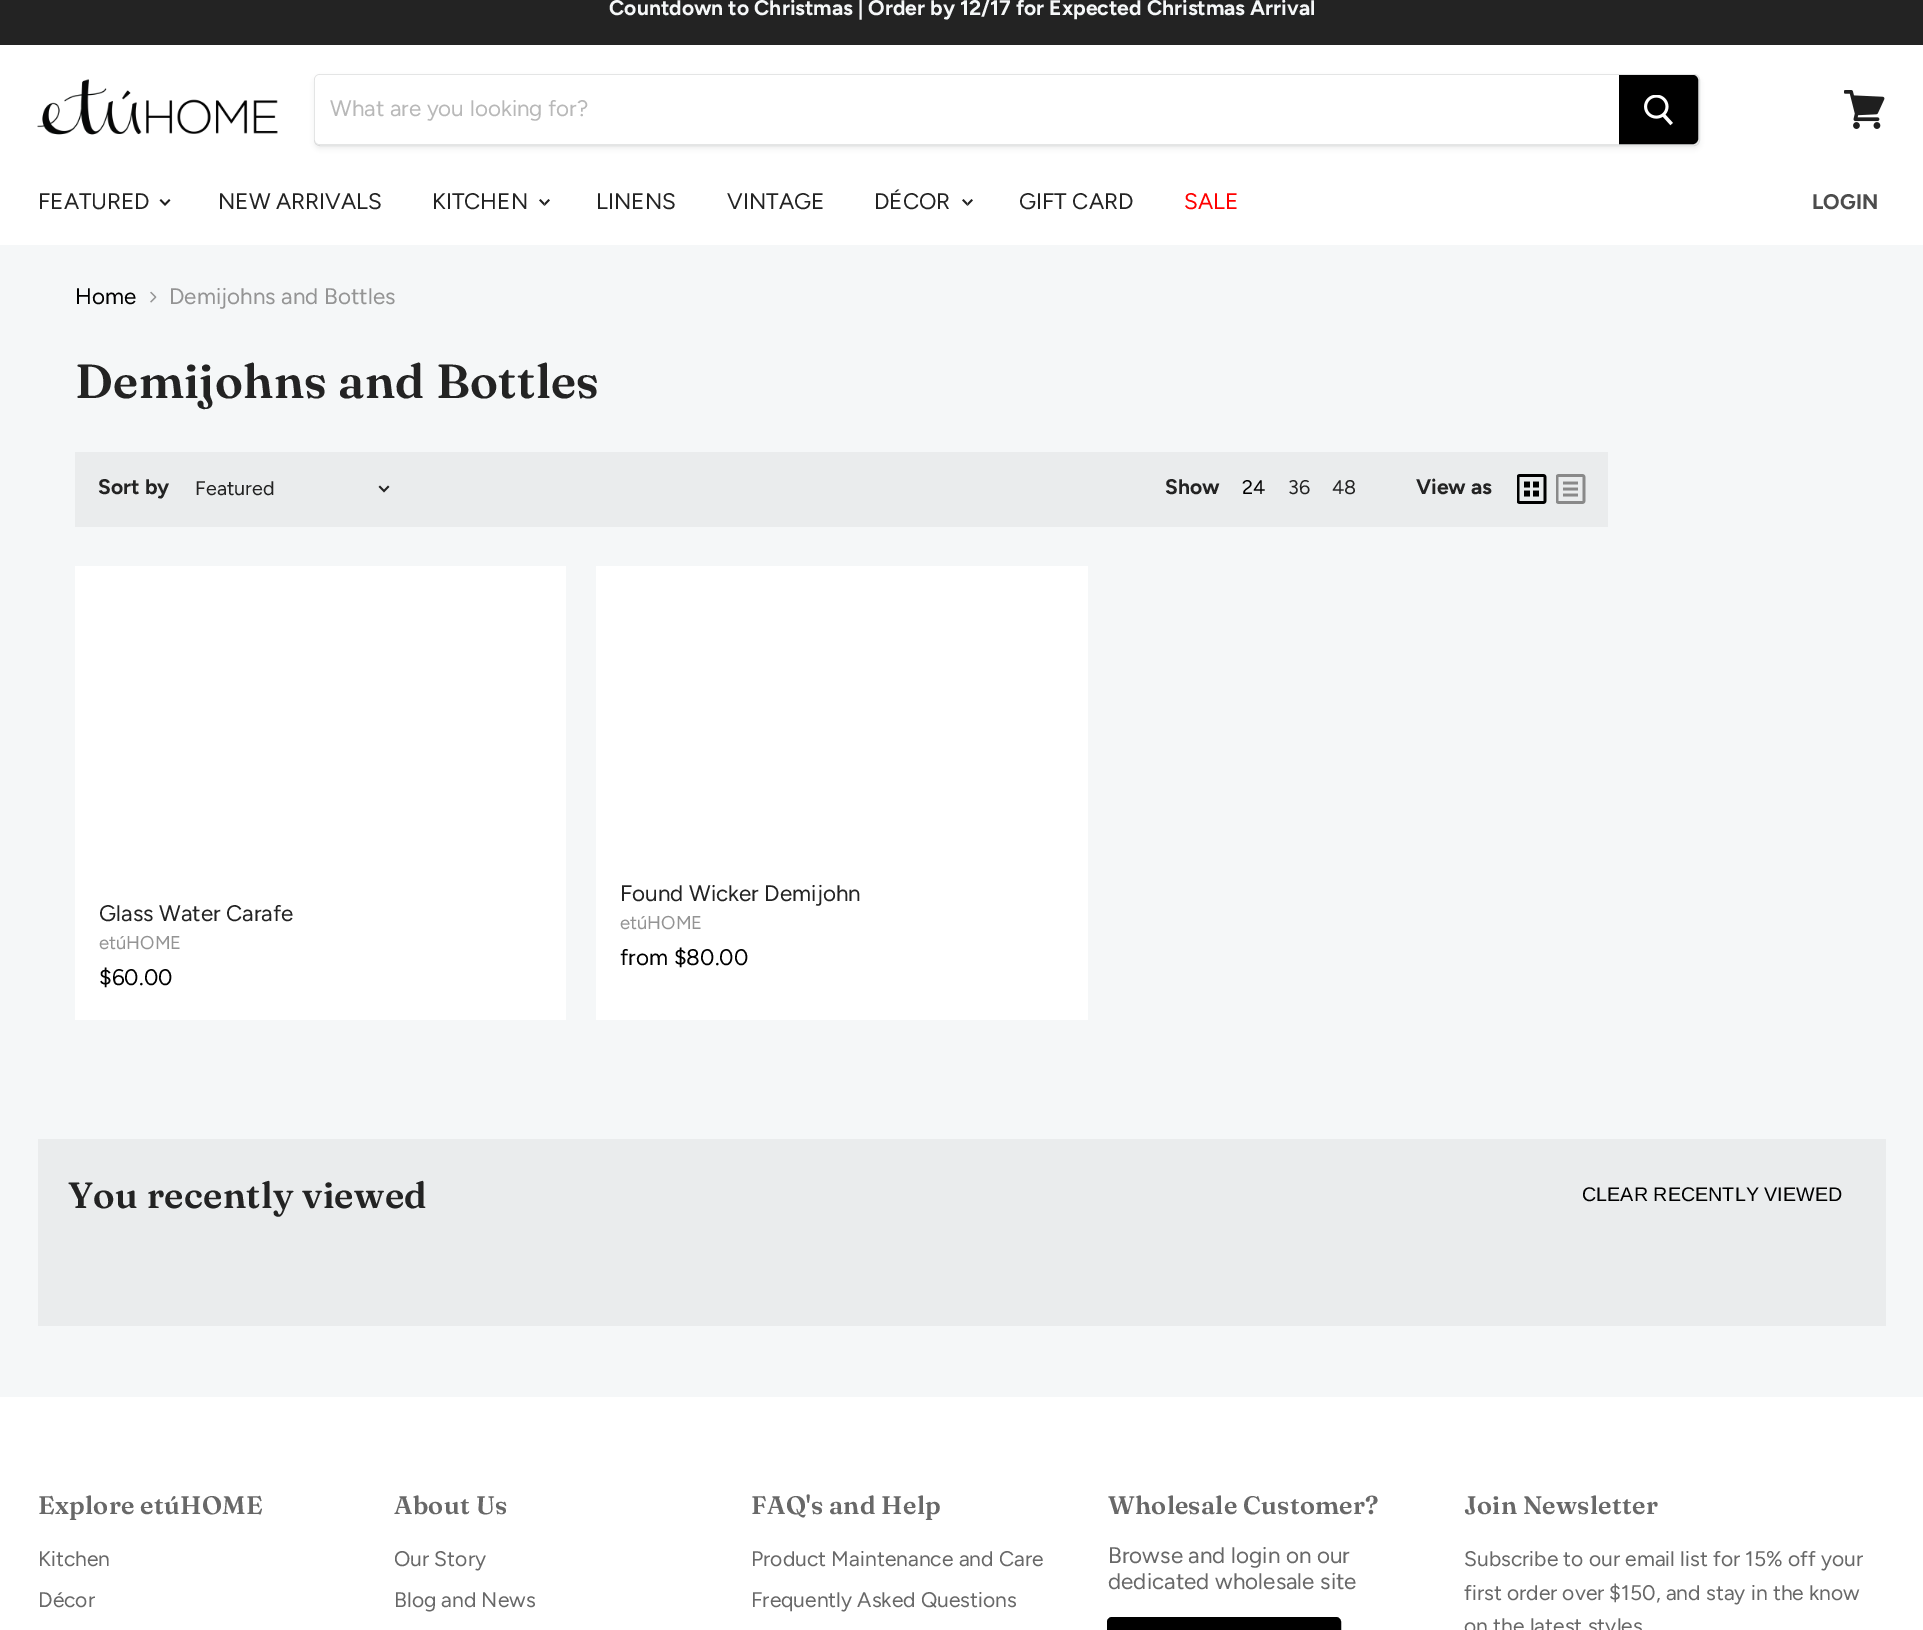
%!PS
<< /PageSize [1923 1630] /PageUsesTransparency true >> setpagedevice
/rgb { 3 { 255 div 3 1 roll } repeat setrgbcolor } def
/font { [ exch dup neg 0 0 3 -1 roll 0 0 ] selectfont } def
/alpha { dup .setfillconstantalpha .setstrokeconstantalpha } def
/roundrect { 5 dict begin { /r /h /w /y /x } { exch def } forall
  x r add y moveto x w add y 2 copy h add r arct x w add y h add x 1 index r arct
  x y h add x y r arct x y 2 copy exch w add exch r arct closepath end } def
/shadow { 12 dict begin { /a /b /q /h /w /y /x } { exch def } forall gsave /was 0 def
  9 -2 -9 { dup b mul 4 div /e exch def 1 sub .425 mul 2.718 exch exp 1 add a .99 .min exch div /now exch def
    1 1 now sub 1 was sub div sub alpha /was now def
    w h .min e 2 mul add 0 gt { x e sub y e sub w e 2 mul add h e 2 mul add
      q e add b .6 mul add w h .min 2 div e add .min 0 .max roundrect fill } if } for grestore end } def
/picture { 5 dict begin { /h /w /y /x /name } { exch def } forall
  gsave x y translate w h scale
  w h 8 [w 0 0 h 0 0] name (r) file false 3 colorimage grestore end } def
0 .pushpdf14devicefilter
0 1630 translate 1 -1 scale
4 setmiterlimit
245 247 248 rgb
0 0 1923 1630 rectfill
35 35 35 rgb
0 0 1923 45 rectfill
255 255 255 rgb
0 45 1923 200 rectfill
(img/1.rgb) 37 79 241 56 picture
gsave
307 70 moveto 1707 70 lineto 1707 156 lineto 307 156 lineto closepath 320 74 moveto 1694 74 lineto 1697.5 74 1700 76.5 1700 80 curveto 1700 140 lineto 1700 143.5 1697.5 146 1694 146 curveto 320 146 lineto 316.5 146 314 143.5 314 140 curveto 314 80 lineto 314 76.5 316.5 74 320 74 curveto closepath eoclip newpath
122 123 124 rgb
314 77 1386 72 6 2 0.11 shadow
grestore
0.2 alpha
122 123 124 rgb
2 setlinewidth
315 75 1384 70 5 roundrect stroke
1 alpha
255 255 255 rgb
320 75 moveto 1619 75 lineto 1619 144 lineto 320 144 lineto 317 144 315 142 315 139 curveto 315 80 lineto 315 77 317 75 320 75 curveto closepath fill
0 0 0 rgb
1620 76 moveto 1693 76 lineto 1695 76 1697 78 1697 80 curveto 1697 139 lineto 1697 141 1695 143 1693 143 curveto 1620 143 lineto closepath gsave fill grestore
stroke
(img/2.rgb) 1644 95 29 31 picture
(img/3.rgb) 1844 90 41 39 picture
(img/4.rgb) 159 199 12 7 picture
(img/5.rgb) 539 199 11 7 picture
(img/5.rgb) 962 199 11 7 picture
(img/6.rgb) 150 291 7 12 picture
234 236 237 rgb
75 452 1533 75 rectfill
(img/7.rgb) 378 485 12 8 picture
(img/8.rgb) 1517 474 30 30 picture
(img/9.rgb) 1556 474 30 30 picture
[
  [75 566 491 454 255 255 255]
  [596 566 492 454 255 255 255]
  [38 1139 1848 187 234 236 237]
  [0 1397 1923 233 255 255 255]
] { aload pop rgb rectfill } forall
0 0 0 rgb
1108 1618 232 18 4 roundrect gsave fill grestore
stroke
/Figtree-Bold 21.1 font
245 247 248 rgb
609 15 moveto (Countdown to Christmas | Order by 12/17 for Expected Christmas Arrival) show
/Figtree-Regular 22.5 font
184 184 184 rgb
330 116 moveto (What are you looking for?) show
35 35 35 rgb
[
  [(FEATURED) 38 209]
  [(NEW ARRIVALS) 218 209]
  [(KITCHEN) 432 209]
  [(LINENS) 596 209]
  [(VINTAGE) 727 209]
  [(DÉCOR) 874 209]
  [(GIFT CARD) 1019 209]
] { aload pop moveto show } forall
255 0 0 rgb
1184 209 moveto (SALE) show
/Figtree-Bold 21.1 font
76 76 76 rgb
1812 209 moveto (LOGIN) show
/Figtree-Regular 22.5 font
0 0 0 rgb
75 304 moveto (Home) show
148 148 148 rgb
169 304 moveto (Demijohns and Bottles) show
/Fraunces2-SemiBold 47.75 font
35 35 35 rgb
75 398 moveto 0.5 0 (Demijohns and Bottles) ashow
/Figtree-Bold 21.1 font
98 494 moveto (Sort by) show
/Figtree-Regular 19.75 font
195 495 moveto (Featured) show
/Figtree-Bold 21.1 font
1165 494 moveto (Show) show
/Figtree-Regular 19.75 font
0 0 0 rgb
1242 494 moveto (24) show
35 35 35 rgb
1288 494 moveto (36) show
1332 494 moveto (48) show
/Figtree-Bold 21.1 font
1416 494 moveto (View as) show
/Figtree-Regular 22.5 font
99 921 moveto (Glass Water Carafe) show
/Figtree-Regular 18.5 font
148 148 148 rgb
99 949 moveto (etúHOME) show
/Figtree-Regular 22.5 font
0 0 0 rgb
99 985 moveto ($60.00) show
35 35 35 rgb
620 901 moveto (Found Wicker Demijohn) show
/Figtree-Regular 18.5 font
148 148 148 rgb
620 929 moveto (etúHOME) show
/Figtree-Regular 22.5 font
0 0 0 rgb
620 965 moveto (from $80.00) show
/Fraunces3-SemiBold 36.5 font
35 35 35 rgb
68 1208 moveto 0.4 0 (You recently viewed) ashow
/LiberationSans-Regular 19.75 font
0 0 0 rgb
1582 1201 moveto (CLEAR RECENTLY VIEWED) show
/Fraunces-SemiBold 25.25 font
104 104 104 rgb
38 1514 moveto 0.25 0 (Explore etúHOME) ashow
/Figtree-Regular 21.1 font
38 1566 moveto (Kitchen) show
38 1607 moveto (Décor) show
/Fraunces-SemiBold 25.25 font
394 1514 moveto 0.25 0 (About Us) ashow
/Figtree-Regular 21.1 font
394 1566 moveto (Our Story) show
394 1607 moveto (Blog and News) show
/Fraunces-SemiBold 25.25 font
751 1514 moveto 0.25 0 (FAQ's and Help) ashow
/Figtree-Regular 21.1 font
751 1566 moveto (Product Maintenance and Care) show
751 1607 moveto (Frequently Asked Questions) show
/Fraunces-SemiBold 25.25 font
1108 1514 moveto 0.25 0 (Wholesale Customer?) ashow
/Figtree-Regular 22.5 font
1108 1563 moveto (Browse and login on our) show
1108 1589 moveto (dedicated wholesale site) show
/Fraunces-SemiBold 25.25 font
1464 1514 moveto 0.25 0 (Join Newsletter) ashow
/Figtree-Regular 21.1 font
[
  [(Subscribe to our email list for 15% off your) 1464 1566]
  [(first order over $150, and stay in the know) 1464 1600]
  [(on the latest styles) 1464 1633]
] { aload pop moveto show } forall
.poppdf14devicefilter showpage
